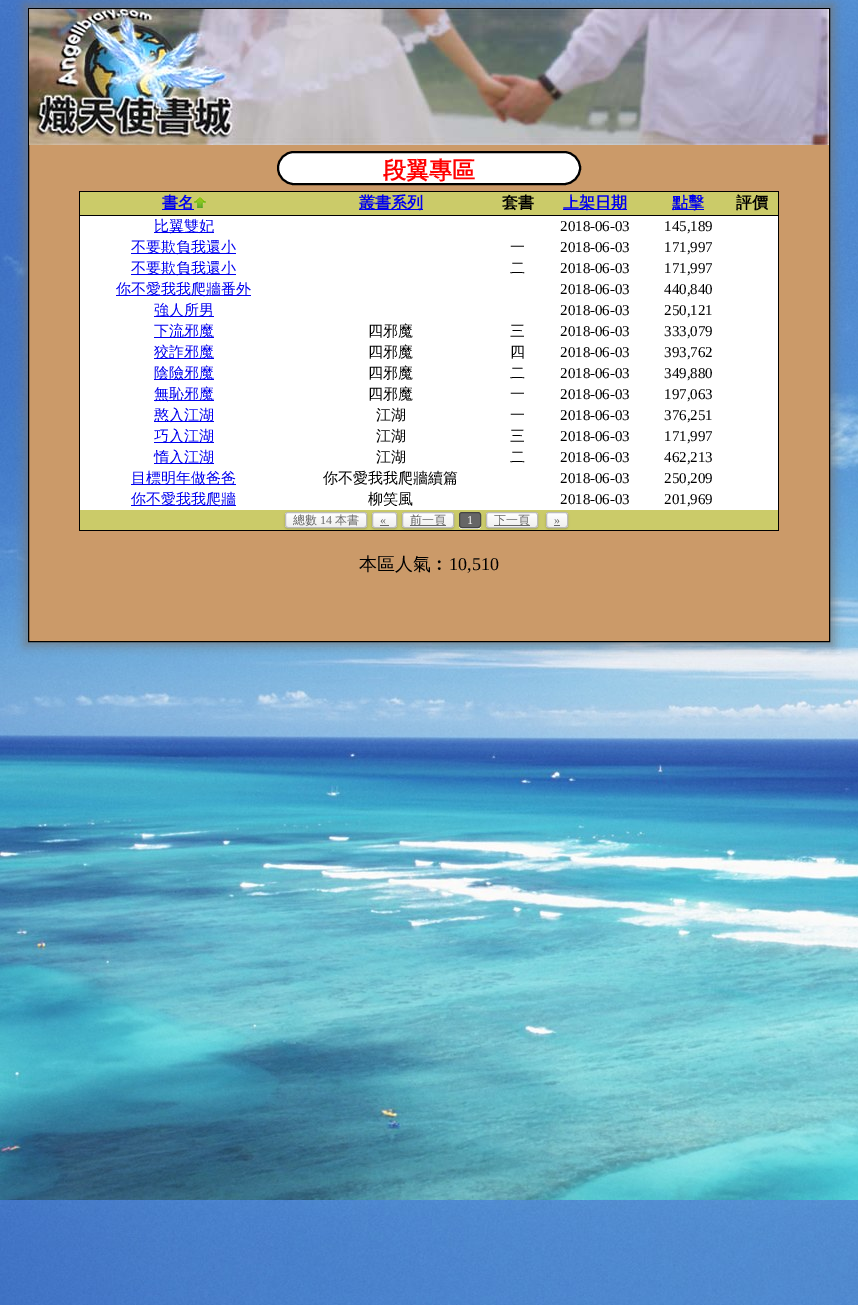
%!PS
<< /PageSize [858 1305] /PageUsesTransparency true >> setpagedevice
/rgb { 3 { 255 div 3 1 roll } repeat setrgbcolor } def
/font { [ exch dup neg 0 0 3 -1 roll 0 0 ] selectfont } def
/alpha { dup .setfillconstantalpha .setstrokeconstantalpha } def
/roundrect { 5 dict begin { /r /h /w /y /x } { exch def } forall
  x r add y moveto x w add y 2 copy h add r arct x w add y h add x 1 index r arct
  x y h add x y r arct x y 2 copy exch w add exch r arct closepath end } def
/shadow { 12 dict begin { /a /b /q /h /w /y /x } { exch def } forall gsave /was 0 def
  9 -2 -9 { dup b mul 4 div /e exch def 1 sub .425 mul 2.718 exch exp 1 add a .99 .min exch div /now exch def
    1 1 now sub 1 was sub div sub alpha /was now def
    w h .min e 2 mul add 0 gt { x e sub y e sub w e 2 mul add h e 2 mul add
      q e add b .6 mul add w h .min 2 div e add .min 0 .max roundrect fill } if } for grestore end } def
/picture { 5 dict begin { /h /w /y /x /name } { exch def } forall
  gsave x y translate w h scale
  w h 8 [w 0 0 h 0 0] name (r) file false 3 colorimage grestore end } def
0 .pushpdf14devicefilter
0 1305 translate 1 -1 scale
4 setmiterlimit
255 255 255 rgb
0 0 858 1305 rectfill
(img/1.rgb) 0 0 858 1305 picture
119 119 119 rgb
24 4 810 642 0 5 0.75 shadow
203 154 105 rgb
29 145 800 496 rectfill
0 0 0 rgb
28.5 8.5 801 633 rectstroke
(img/2.rgb) 29 9 800 136 picture
255 255 255 rgb
278 152 302 32 16 roundrect gsave fill grestore
0 0 0 rgb
2 setlinewidth
stroke
[
  [80 216 698 294 255 255 255]
  [79 191 700 1 0 0 0]
  [778 191 1 340 0 0 0]
  [79 530 700 1 0 0 0]
  [79 191 1 340 0 0 0]
  [80 192 698 23 203 203 105]
  [162 209 32 1 0 0 238]
] { aload pop rgb rectfill } forall
(img/3.rgb) 194 197 12 11 picture
[
  [359 209 64 1 0 0 238]
  [563 209 64 1 0 0 238]
  [672 209 32 1 0 0 238]
  [79 215 700 1 0 0 0]
  [154 232 60 1 0 0 238]
  [131 253 105 1 0 0 238]
  [131 274 105 1 0 0 238]
  [116 295 135 1 0 0 238]
  [154 316 60 1 0 0 238]
  [154 337 60 1 0 0 238]
  [154 358 60 1 0 0 238]
  [154 379 60 1 0 0 238]
  [154 400 60 1 0 0 238]
  [154 421 60 1 0 0 238]
  [154 442 60 1 0 0 238]
  [154 463 60 1 0 0 238]
  [131 484 105 1 0 0 238]
  [131 505 105 1 0 0 238]
  [80 510 698 20 203 203 105]
] { aload pop rgb rectfill } forall
0 0 0 rgb
285 513 82 16 3 1 0.2 shadow
gsave
285 512 82 16 3 roundrect clip newpath
gsave 285 513 moveto 367 513 lineto 367 527 lineto 285 527 lineto closepath clip newpath
<< /ShadingType 2 /ColorSpace /DeviceRGB /Coords [326 513 326 527] /Extend [true true] /Function << /FunctionType 2 /Domain [0 1] /C0 [1 1 1] /C1 [0.937 0.937 0.937] /N 1 >> >> shfill grestore
grestore
187 187 187 rgb
1 setlinewidth
285.5 512.5 81 15 2.5 roundrect stroke
0 0 0 rgb
372 513 25 16 3 1 0.2 shadow
gsave
372 512 25 16 3 roundrect clip newpath
gsave 372 513 moveto 397 513 lineto 397 527 lineto 372 527 lineto closepath clip newpath
<< /ShadingType 2 /ColorSpace /DeviceRGB /Coords [385 513 385 527] /Extend [true true] /Function << /FunctionType 2 /Domain [0 1] /C0 [1 1 1] /C1 [0.937 0.937 0.937] /N 1 >> >> shfill grestore
grestore
187 187 187 rgb
372.5 512.5 24 15 2.5 roundrect stroke
102 102 102 rgb
380 525 9 1 rectfill
0 0 0 rgb
402 513 52 16 3 1 0.2 shadow
gsave
402 512 52 16 3 roundrect clip newpath
gsave 402 513 moveto 454 513 lineto 454 527 lineto 402 527 lineto closepath clip newpath
<< /ShadingType 2 /ColorSpace /DeviceRGB /Coords [428 513 428 527] /Extend [true true] /Function << /FunctionType 2 /Domain [0 1] /C0 [1 1 1] /C1 [0.937 0.937 0.937] /N 1 >> >> shfill grestore
grestore
187 187 187 rgb
402.5 512.5 51 15 2.5 roundrect stroke
102 102 102 rgb
410 525 36 1 rectfill
255 255 255 rgb
459 525 moveto 459 529 461 529 464.5 529 curveto 475.5 529 lineto 479 529 481 529 481 525 curveto 481 526.5 479.5 528 478 528 curveto 462 528 lineto 460.5 528 459 526.5 459 525 curveto closepath fill
102 102 102 rgb
459.5 512.5 21 15 2.5 roundrect gsave fill grestore
68 68 68 rgb
stroke
0 0 0 rgb
486 513 52 16 3 1 0.2 shadow
gsave
486 512 52 16 3 roundrect clip newpath
gsave 486 513 moveto 538 513 lineto 538 527 lineto 486 527 lineto closepath clip newpath
<< /ShadingType 2 /ColorSpace /DeviceRGB /Coords [512 513 512 527] /Extend [true true] /Function << /FunctionType 2 /Domain [0 1] /C0 [1 1 1] /C1 [0.937 0.937 0.937] /N 1 >> >> shfill grestore
grestore
187 187 187 rgb
486.5 512.5 51 15 2.5 roundrect stroke
102 102 102 rgb
494 525 36 1 rectfill
0 0 0 rgb
546 513 22 16 3 1 0.2 shadow
gsave
546 512 22 16 3 roundrect clip newpath
gsave 546 513 moveto 568 513 lineto 568 527 lineto 546 527 lineto closepath clip newpath
<< /ShadingType 2 /ColorSpace /DeviceRGB /Coords [557 513 557 527] /Extend [true true] /Function << /FunctionType 2 /Domain [0 1] /C0 [1 1 1] /C1 [0.937 0.937 0.937] /N 1 >> >> shfill grestore
grestore
187 187 187 rgb
546.5 512.5 21 15 2.5 roundrect stroke
102 102 102 rgb
554 525 6 1 rectfill
/WenQuanYiZenHei-Bold 23 font
255 0 0 rgb
383 178 moveto (段翼專區) show
/WenQuanYiZenHei-Bold 16 font
0 0 238 rgb
162 208 moveto (書名) show
359 208 moveto (叢書系列) show
0 0 0 rgb
502 208 moveto (套書) show
0 0 238 rgb
563 208 moveto (上架日期) show
672 208 moveto (點擊) show
0 0 0 rgb
736 208 moveto (評價) show
/WenQuanYiZenHei-Medium 15 font
0 0 238 rgb
154 231 moveto (比翼雙妃) show
/LiberationSerif-Regular 15 font
0 0 0 rgb
560 231 moveto (2018-06-03) show
664 231 moveto (145,189) show
/WenQuanYiZenHei-Medium 15 font
0 0 238 rgb
131 252 moveto (不要欺負我還小) show
0 0 0 rgb
510 252 moveto (一) show
/LiberationSerif-Regular 15 font
560 252 moveto (2018-06-03) show
664 252 moveto (171,997) show
/WenQuanYiZenHei-Medium 15 font
0 0 238 rgb
131 273 moveto (不要欺負我還小) show
0 0 0 rgb
510 273 moveto (二) show
/LiberationSerif-Regular 15 font
560 273 moveto (2018-06-03) show
664 273 moveto (171,997) show
/WenQuanYiZenHei-Medium 15 font
0 0 238 rgb
116 294 moveto (你不愛我我爬牆番外) show
/LiberationSerif-Regular 15 font
0 0 0 rgb
560 294 moveto (2018-06-03) show
664 294 moveto (440,840) show
/WenQuanYiZenHei-Medium 15 font
0 0 238 rgb
154 315 moveto (強人所男) show
/LiberationSerif-Regular 15 font
0 0 0 rgb
560 315 moveto (2018-06-03) show
664 315 moveto (250,121) show
/WenQuanYiZenHei-Medium 15 font
0 0 238 rgb
154 336 moveto (下流邪魔) show
0 0 0 rgb
368 336 moveto (四邪魔) show
510 336 moveto (三) show
/LiberationSerif-Regular 15 font
560 336 moveto (2018-06-03) show
664 336 moveto (333,079) show
/WenQuanYiZenHei-Medium 15 font
0 0 238 rgb
154 357 moveto (狡詐邪魔) show
0 0 0 rgb
368 357 moveto (四邪魔) show
510 357 moveto (四) show
/LiberationSerif-Regular 15 font
560 357 moveto (2018-06-03) show
664 357 moveto (393,762) show
/WenQuanYiZenHei-Medium 15 font
0 0 238 rgb
154 378 moveto (陰險邪魔) show
0 0 0 rgb
368 378 moveto (四邪魔) show
510 378 moveto (二) show
/LiberationSerif-Regular 15 font
560 378 moveto (2018-06-03) show
664 378 moveto (349,880) show
/WenQuanYiZenHei-Medium 15 font
0 0 238 rgb
154 399 moveto (無恥邪魔) show
0 0 0 rgb
368 399 moveto (四邪魔) show
510 399 moveto (一) show
/LiberationSerif-Regular 15 font
560 399 moveto (2018-06-03) show
664 399 moveto (197,063) show
/WenQuanYiZenHei-Medium 15 font
0 0 238 rgb
154 420 moveto (憨入江湖) show
0 0 0 rgb
376 420 moveto (江湖) show
510 420 moveto (一) show
/LiberationSerif-Regular 15 font
560 420 moveto (2018-06-03) show
664 420 moveto (376,251) show
/WenQuanYiZenHei-Medium 15 font
0 0 238 rgb
154 441 moveto (巧入江湖) show
0 0 0 rgb
376 441 moveto (江湖) show
510 441 moveto (三) show
/LiberationSerif-Regular 15 font
560 441 moveto (2018-06-03) show
664 441 moveto (171,997) show
/WenQuanYiZenHei-Medium 15 font
0 0 238 rgb
154 462 moveto (惰入江湖) show
0 0 0 rgb
376 462 moveto (江湖) show
510 462 moveto (二) show
/LiberationSerif-Regular 15 font
560 462 moveto (2018-06-03) show
664 462 moveto (462,213) show
/WenQuanYiZenHei-Medium 15 font
0 0 238 rgb
131 483 moveto (目標明年做爸爸) show
0 0 0 rgb
323 483 moveto (你不愛我我爬牆續篇) show
/LiberationSerif-Regular 15 font
560 483 moveto (2018-06-03) show
664 483 moveto (250,209) show
/WenQuanYiZenHei-Medium 15 font
0 0 238 rgb
131 504 moveto (你不愛我我爬牆) show
0 0 0 rgb
368 504 moveto (柳笑風) show
/LiberationSerif-Regular 15 font
560 504 moveto (2018-06-03) show
664 504 moveto (201,969) show
/WenQuanYiZenHei-Medium 12 font
102 102 102 rgb
293 524 moveto (總數) show
/LiberationSerif-Regular 12 font
320 524 moveto (14) show
/WenQuanYiZenHei-Medium 12 font
335 524 moveto (本書) show
/LiberationSerif-Regular 12 font
380 524 moveto («) show
/WenQuanYiZenHei-Medium 12 font
410 524 moveto (前一頁) show
/LiberationSerif-Regular 12 font
255 255 255 rgb
467 524 moveto (1) show
/WenQuanYiZenHei-Medium 12 font
102 102 102 rgb
494 524 moveto (下一頁) show
/LiberationSerif-Regular 12 font
554 524 moveto (») show
/WenQuanYiZenHei-Medium 18 font
0 0 0 rgb
359 570 moveto (本區人氣︰) show
/LiberationSerif-Regular 18 font
449 570 moveto (10,510) show
.poppdf14devicefilter showpage
